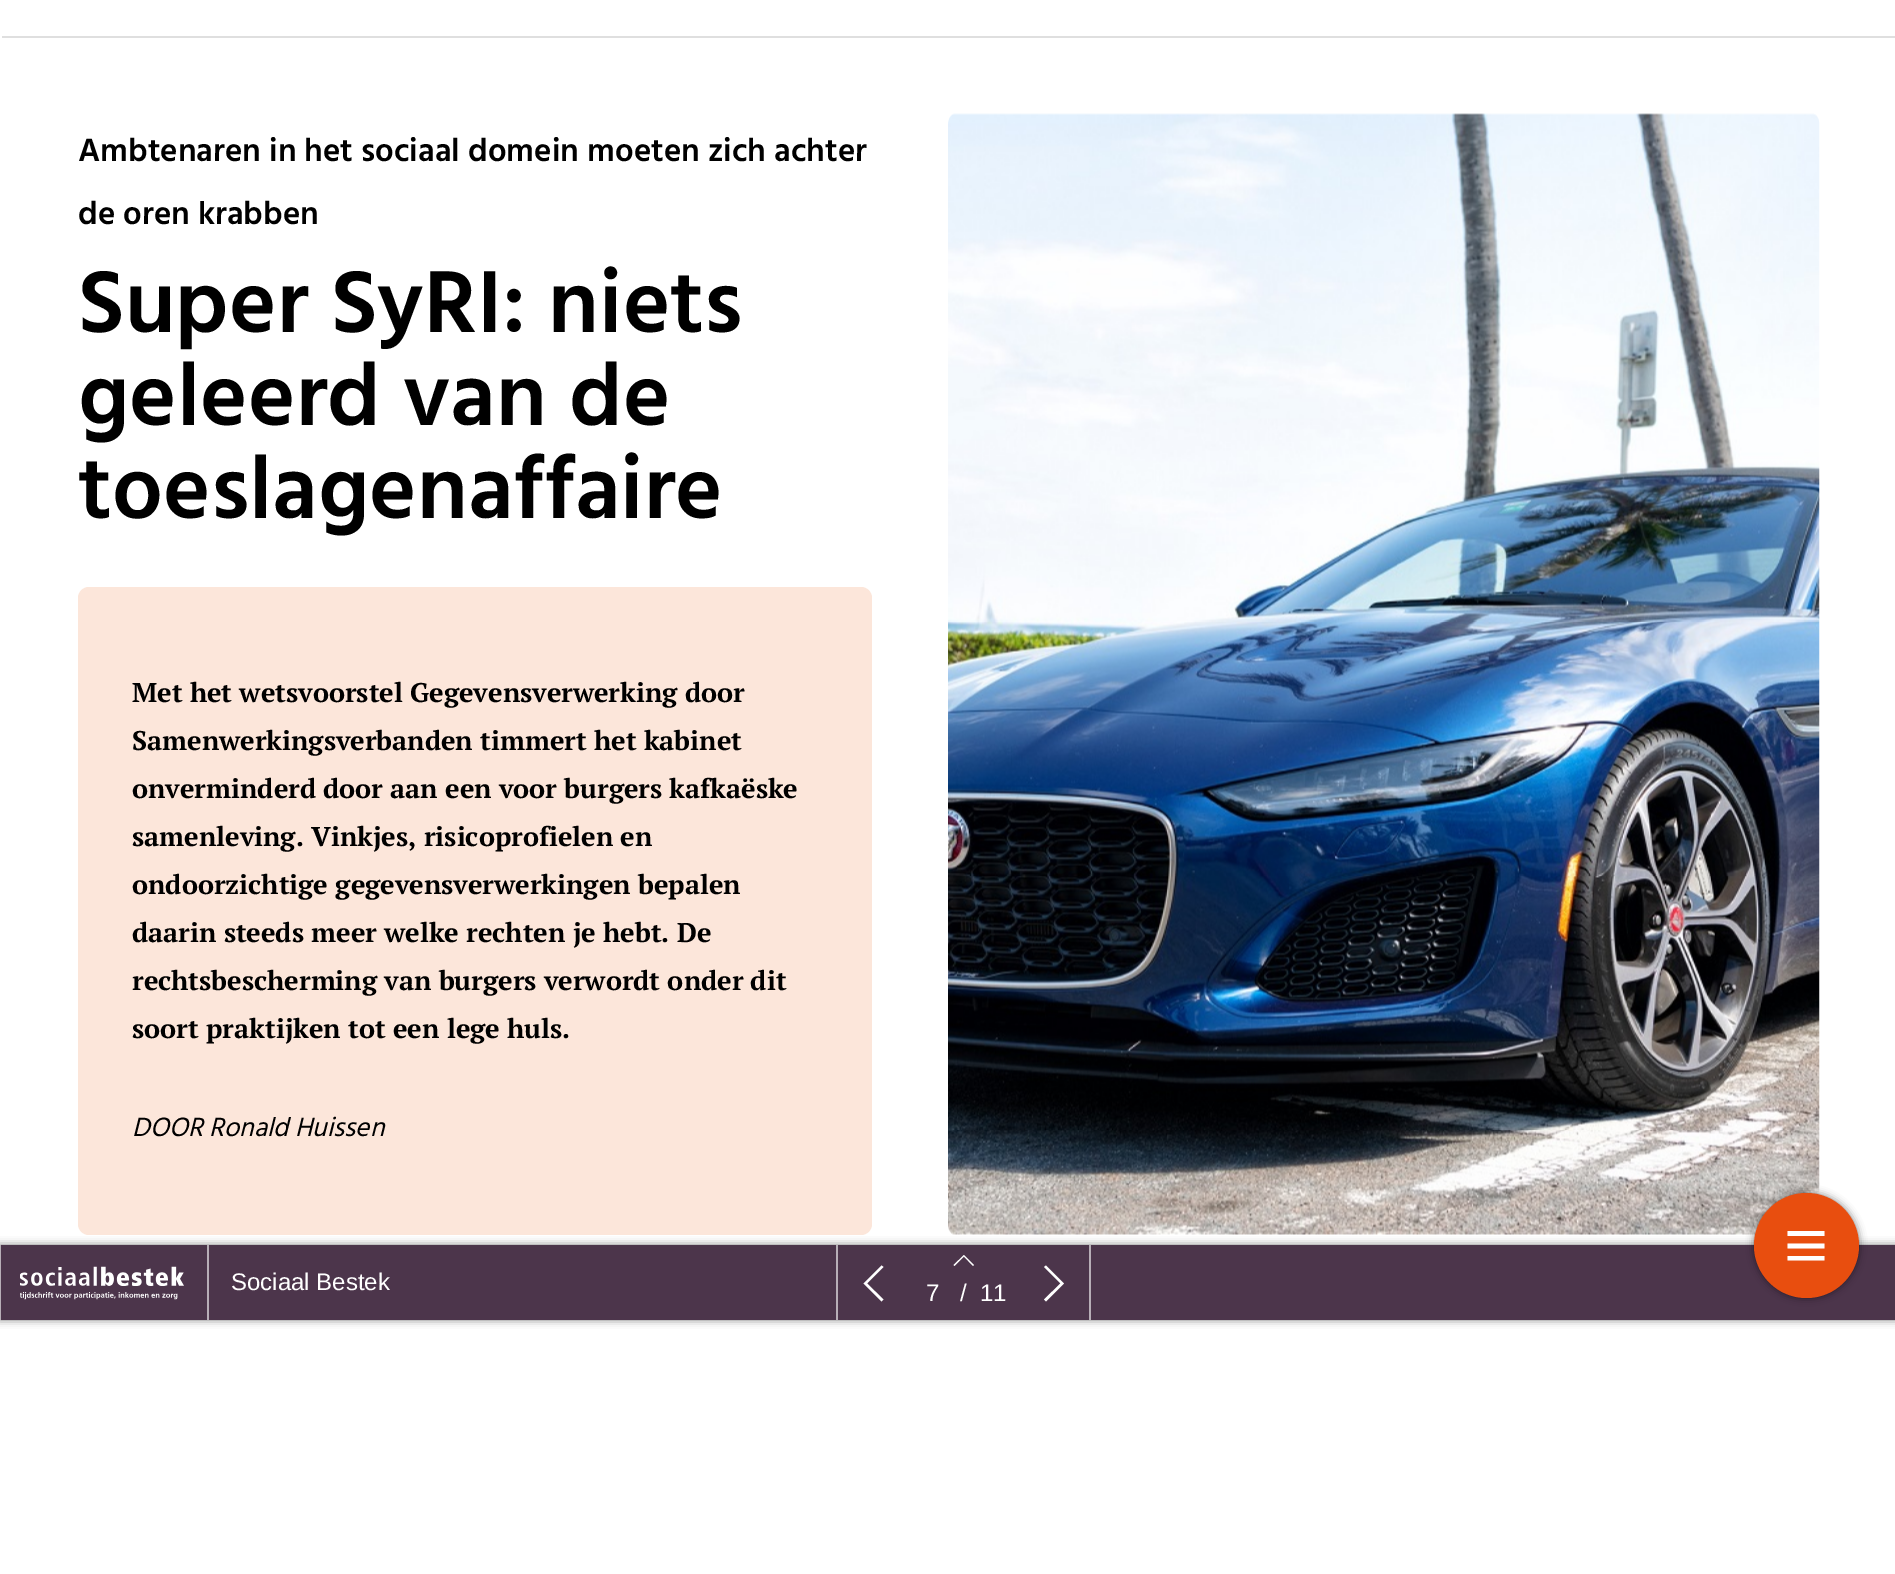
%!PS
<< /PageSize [1895 1574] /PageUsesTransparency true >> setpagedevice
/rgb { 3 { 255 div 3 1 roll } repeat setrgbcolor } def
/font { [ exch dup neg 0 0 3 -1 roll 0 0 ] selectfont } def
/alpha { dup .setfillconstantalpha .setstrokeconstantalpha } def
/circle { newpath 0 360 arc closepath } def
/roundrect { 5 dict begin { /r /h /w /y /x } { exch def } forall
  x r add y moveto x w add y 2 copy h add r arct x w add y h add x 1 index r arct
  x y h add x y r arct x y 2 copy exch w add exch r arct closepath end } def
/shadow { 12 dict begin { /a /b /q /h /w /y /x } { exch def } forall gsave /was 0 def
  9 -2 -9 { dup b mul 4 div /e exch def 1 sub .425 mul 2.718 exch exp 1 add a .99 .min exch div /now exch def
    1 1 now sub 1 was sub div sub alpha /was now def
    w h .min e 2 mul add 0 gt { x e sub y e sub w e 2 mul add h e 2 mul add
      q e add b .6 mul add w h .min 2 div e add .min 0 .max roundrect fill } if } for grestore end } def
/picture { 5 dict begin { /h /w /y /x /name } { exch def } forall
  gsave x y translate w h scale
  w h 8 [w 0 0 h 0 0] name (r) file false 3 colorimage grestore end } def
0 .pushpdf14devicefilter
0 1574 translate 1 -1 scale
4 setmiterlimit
255 255 255 rgb
0 0 1895 1574 rectfill
223 223 223 rgb
2 36 1893 2 rectfill
252 230 218 rgb
78 587 794 648 11 roundrect fill
(img/1.rgb) 948 113 872 1122 picture
0 0 0 rgb
0 1245 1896 75 0 4 0.5 shadow
76 53 75 rgb
1 1245 1894 75 rectfill
183 174 183 rgb
0 1245 1 75 rectfill
(img/2.rgb) 20 1266 164 34 picture
207 1245 2 75 rectfill
836 1245 2 75 rectfill
255 255 255 rgb
867 1283.5 moveto 883.5 1299.5 lineto 881.5 1301.5 lineto 863.5 1283.5 lineto 881.5 1265.5 lineto 883.5 1267 lineto closepath fill
974 1265 moveto 973 1266 lineto 964 1256.5 lineto 954.5 1266 lineto 953.5 1265 lineto 964 1255 lineto closepath fill
183 174 183 rgb
1089 1245 2 75 rectfill
255 255 255 rgb
1064 1283.5 moveto 1046 1301.5 lineto 1044 1299.5 lineto 1060.5 1283.5 lineto 1044 1267 lineto 1046 1265.5 lineto closepath fill
0 0 0 rgb
1754 1193 105 105 52.5 4 0.5 shadow
232 78 15 rgb
1806.5 1245.5 52.5 circle fill
255 255 255 rgb
1824.5 1231 moveto 1824.5 1236 lineto 1787.5 1236 lineto 1787.5 1231 lineto closepath 1787.5 1248.5 moveto 1824.5 1248.5 lineto 1824.5 1243.5 lineto 1787.5 1243.5 lineto closepath 1787.5 1260.5 moveto 1824.5 1260.5 lineto 1824.5 1256 lineto 1787.5 1256 lineto closepath fill
/Hind-SemiBold 33 font
0 0 0 rgb
78 161 moveto (Ambtenaren in het sociaal domein moeten zich achter) show
78 224 moveto (de oren krabben) show
/Hind-SemiBold 90 font
[
  [(Super SyRI: niets) 78 332]
  [(geleerd van de) 78 425]
  [(toeslagenaffaire) 78 518]
] { aload pop moveto show } forall
/PTSerif-Bold 27 font
[
  [(Met het wetsvoorstel Gegevensverwerking door) 132 702]
  [(Samenwerkingsverbanden timmert het kabinet) 132 750]
  [(onverminderd door aan een voor burgers kafkaëske) 132 798]
  [(samenleving. Vinkjes, risicoprofielen en) 132 846]
  [(ondoorzichtige gegevensverwerkingen bepalen) 132 894]
  [(daarin steeds meer welke rechten je hebt. De) 132 942]
  [(rechtsbescherming van burgers verwordt onder dit) 132 990]
  [(soort praktijken tot een lege huls.) 132 1038]
] { aload pop moveto show } forall
/Hind-Italic 27 font
132 1136 moveto (DOOR Ronald Huissen) show
/LiberationSans-Regular 24 font
255 255 255 rgb
[
  [(Sociaal Bestek) 231 1290]
  [(7) 926 1301]
  [(/) 960 1301]
  [(11) 980 1301]
] { aload pop moveto show } forall
.poppdf14devicefilter showpage
